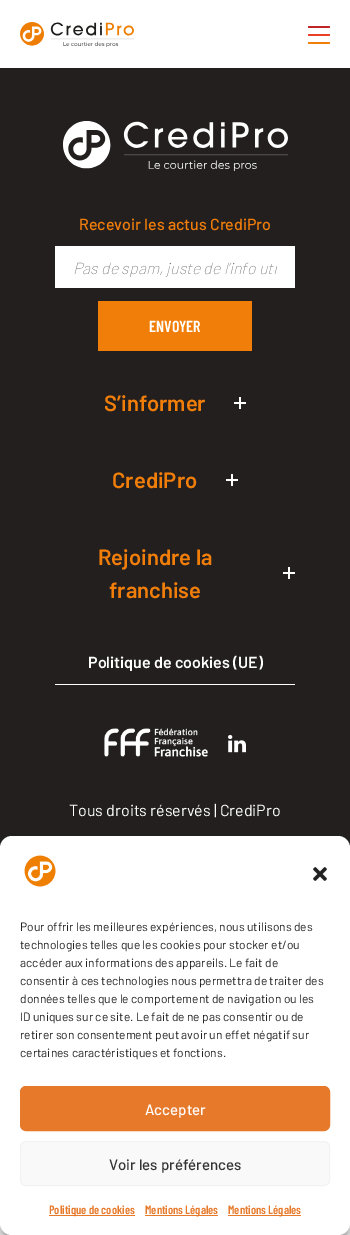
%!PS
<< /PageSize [350 1235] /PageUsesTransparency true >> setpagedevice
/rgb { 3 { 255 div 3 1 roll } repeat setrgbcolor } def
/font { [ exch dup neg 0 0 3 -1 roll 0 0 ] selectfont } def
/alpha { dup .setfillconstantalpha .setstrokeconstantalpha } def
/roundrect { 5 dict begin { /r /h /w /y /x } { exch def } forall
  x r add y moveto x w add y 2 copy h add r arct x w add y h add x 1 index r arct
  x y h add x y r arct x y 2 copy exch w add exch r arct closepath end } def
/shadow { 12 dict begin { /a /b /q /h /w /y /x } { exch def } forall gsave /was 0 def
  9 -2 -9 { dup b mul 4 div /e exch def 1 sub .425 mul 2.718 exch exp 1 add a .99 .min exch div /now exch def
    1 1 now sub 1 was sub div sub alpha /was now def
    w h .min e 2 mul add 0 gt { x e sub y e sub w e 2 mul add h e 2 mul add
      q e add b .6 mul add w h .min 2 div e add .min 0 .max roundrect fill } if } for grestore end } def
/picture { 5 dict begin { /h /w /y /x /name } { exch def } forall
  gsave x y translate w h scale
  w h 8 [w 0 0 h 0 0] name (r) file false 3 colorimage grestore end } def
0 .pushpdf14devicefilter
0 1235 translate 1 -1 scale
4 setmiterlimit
255 255 255 rgb
0 0 350 1235 rectfill
(img/1.rgb) 20 22 114 25 picture
191 36 38 rgb
308 26 22 2 1 roundrect fill
234 63 37 rgb
308 34 22 2 1 roundrect fill
242 126 10 rgb
308 42 22 2 1 roundrect fill
35 31 31 rgb
0 68 350 780 rectfill
255 255 255 rgb
55 684 240 1 rectfill
(img/2.rgb) 63 121 225 50 picture
55 246 240 42 rectfill
242 126 10 rgb
98 301 154 50 rectfill
(img/3.rgb) 234 397 12 12 picture
(img/3.rgb) 226 474 12 12 picture
(img/3.rgb) 283 567 12 12 picture
(img/4.rgb) 104 728 104 29 picture
(img/5.rgb) 228 735 18 18 picture
0 0 0 rgb
0 842 350 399 12 3 0.23 shadow
0 846 350 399 12 10 0.19 shadow
255 255 255 rgb
0 836 350 399 12 roundrect fill
(img/6.rgb) 24 855 32 32 picture
(img/7.rgb) 313 867 14 14 picture
231 121 43 rgb
20.5 1086.5 309 44 5.5 roundrect gsave fill grestore
stroke
249 249 249 rgb
20.5 1141.5 309 44 5.5 roundrect gsave fill grestore
242 242 242 rgb
stroke
[
  [49 1215 86 1 231 121 43]
  [145 1215 73 1 231 121 43]
  [228 1215 73 1 231 121 43]
] { aload pop rgb rectfill } forall
/Barlow-Medium 16 font
242 126 10 rgb
79 230 moveto (Recevoir les actus CrediPro) show
gsave
73 258 204 19 rectclip
/Barlow-ThinItalic 16 font
117 117 117 rgb
73 274 moveto (Pas de spam, juste de l’info uti) show
grestore
/BarlowCondensed-SemiBold 16 font
255 255 255 rgb
149 332 moveto (ENVOYER) show
/Barlow-SemiBold 22 font
242 126 10 rgb
[
  [(S’informer) 104 411]
  [(CrediPro) 112 488]
  [(Rejoindre la) 98 565]
  [(franchise) 109 598]
] { aload pop moveto show } forall
/Barlow-SemiBold 16 font
255 255 255 rgb
88 668 moveto (Politique de cookies \(UE\)) show
/Barlow-Regular 16 font
69 816 moveto (Tous droits réservés | CrediPro) show
/Barlow-Regular 12 font
34 34 34 rgb
[
  [(Pour offrir les meilleures expériences, nous utilisons des) 20 931]
  [(technologies telles que les cookies pour stocker et/ou) 20 949]
  [(accéder aux informations des appareils. Le fait de) 20 967]
  [(consentir à ces technologies nous permettra de traiter des) 20 985]
  [(données telles que le comportement de navigation ou les) 20 1003]
  [(ID uniques sur ce site. Le fait de ne pas consentir ou de) 20 1021]
  [(retirer son consentement peut avoir un effet négatif sur) 20 1039]
  [(certaines caractéristiques et fonctions.) 20 1057]
] { aload pop moveto show } forall
/Barlow-Medium 15 font
255 255 255 rgb
145 1115 moveto (Accepter) show
51 51 51 rgb
109 1170 moveto (Voir les préférences) show
/BarlowCondensed-SemiBold 12 font
231 121 43 rgb
[
  [(Politique de cookies) 49 1214]
  [(Mentions Légales) 145 1214]
  [(Mentions Légales) 228 1214]
] { aload pop moveto show } forall
.poppdf14devicefilter showpage
